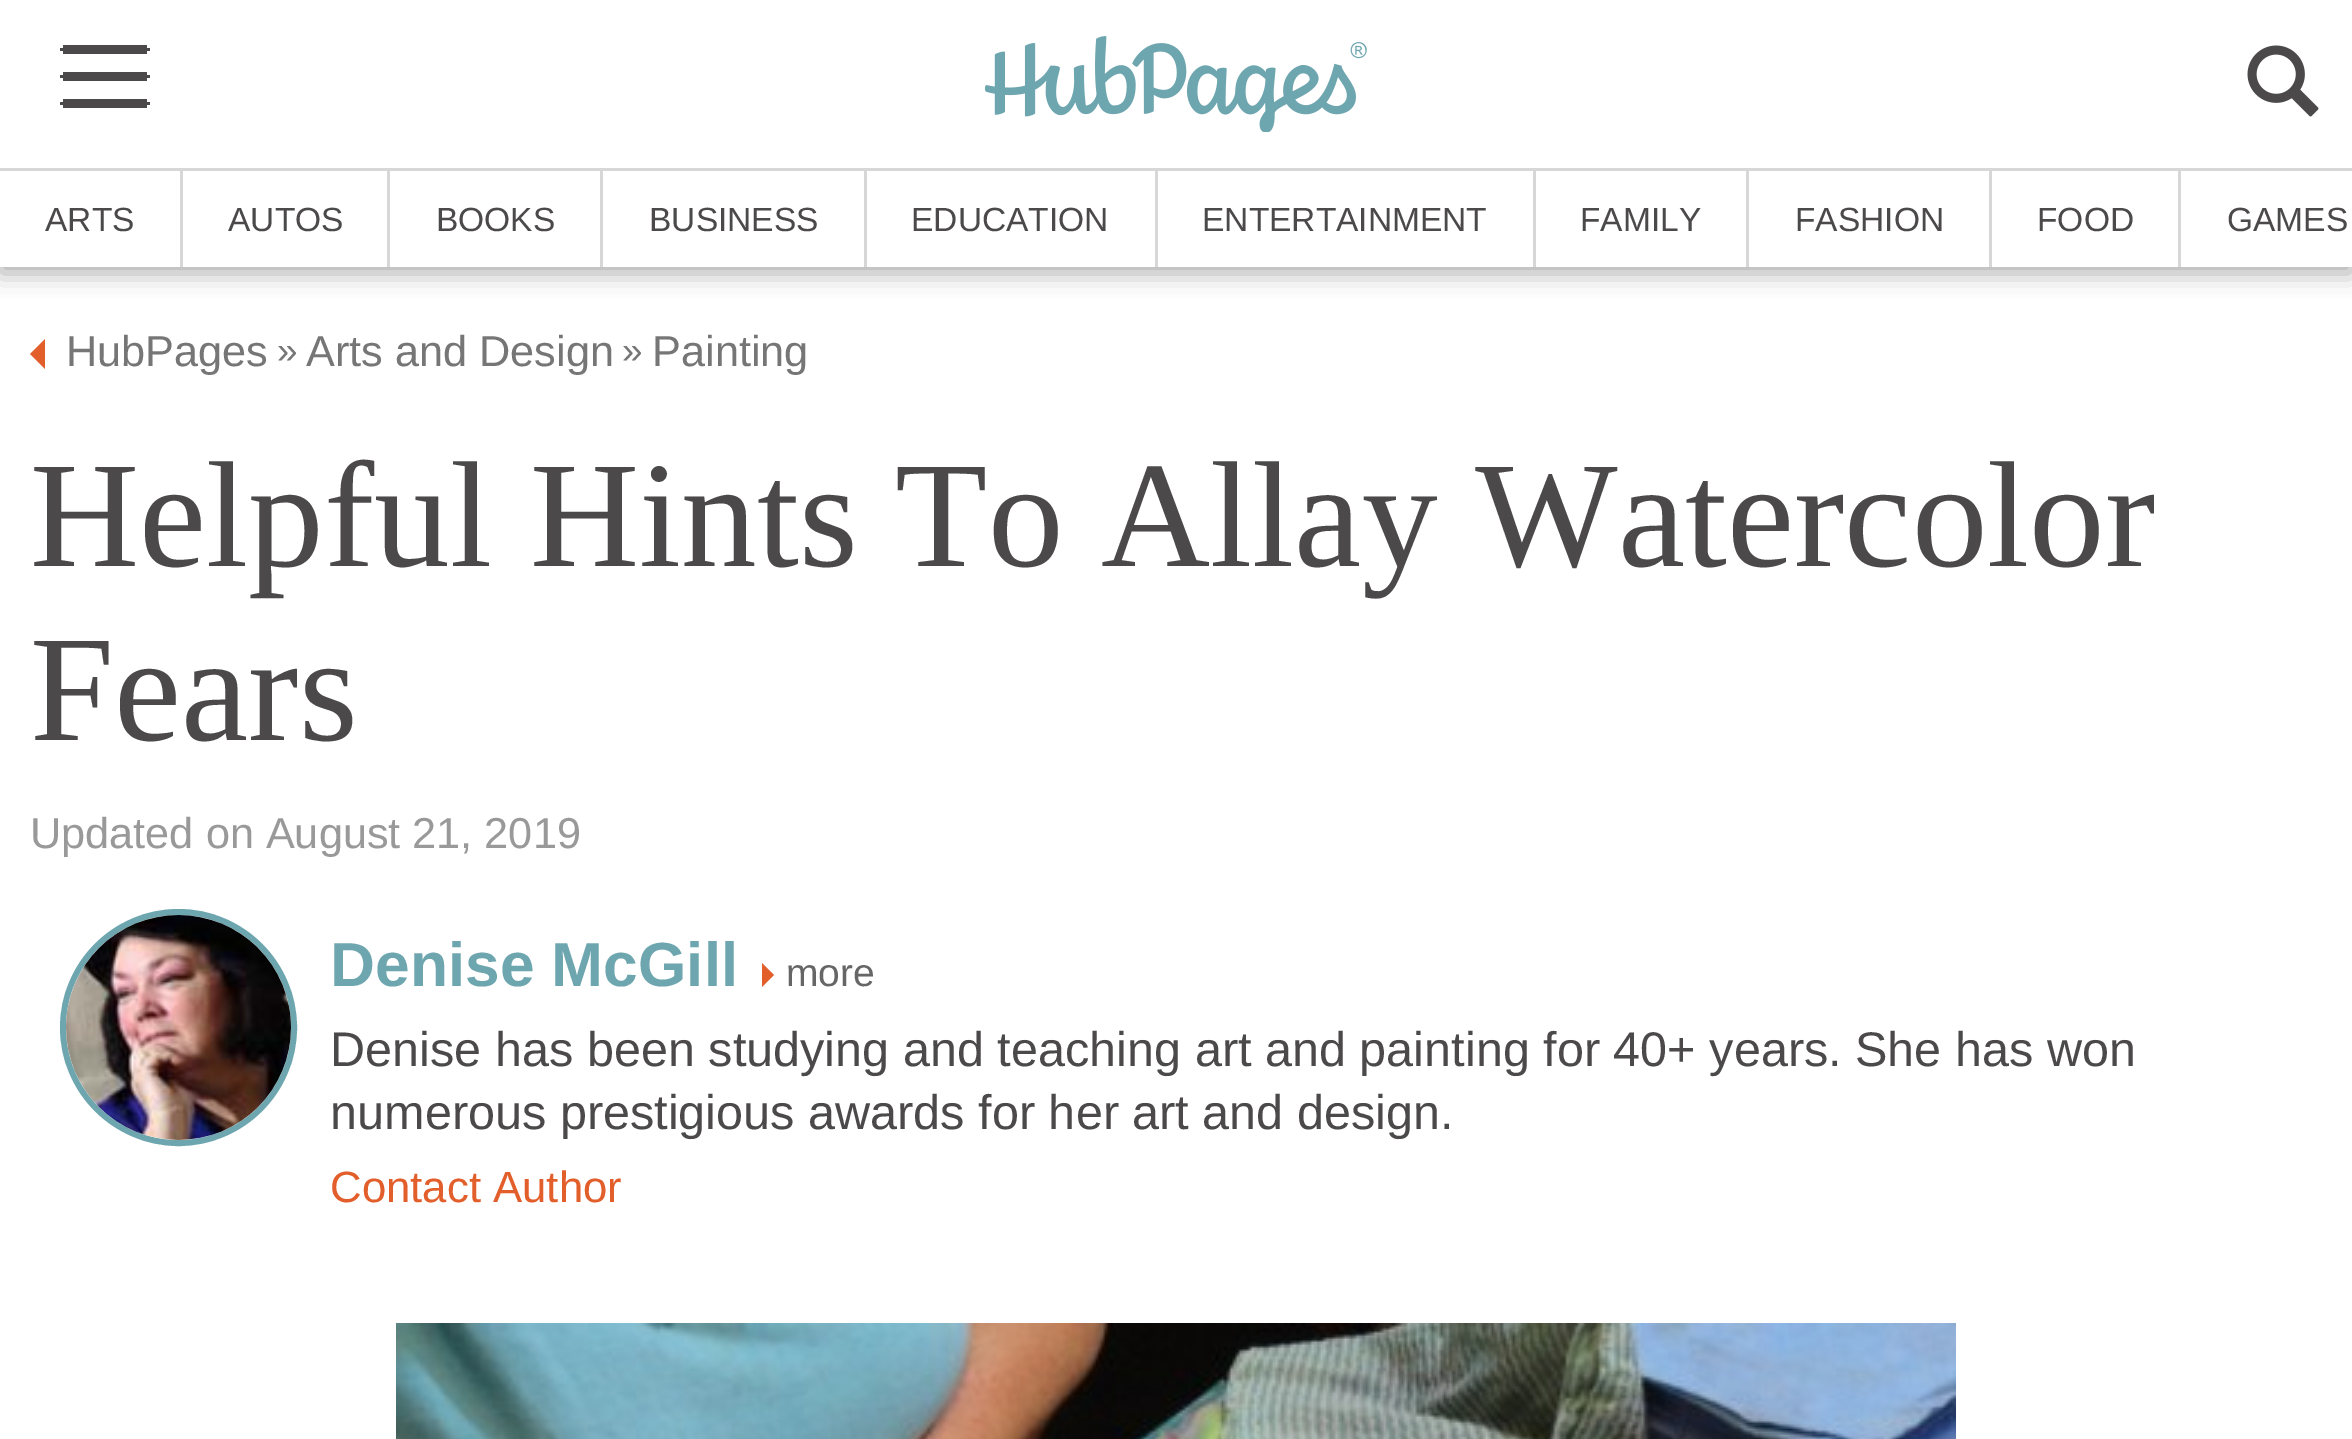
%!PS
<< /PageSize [2352 1439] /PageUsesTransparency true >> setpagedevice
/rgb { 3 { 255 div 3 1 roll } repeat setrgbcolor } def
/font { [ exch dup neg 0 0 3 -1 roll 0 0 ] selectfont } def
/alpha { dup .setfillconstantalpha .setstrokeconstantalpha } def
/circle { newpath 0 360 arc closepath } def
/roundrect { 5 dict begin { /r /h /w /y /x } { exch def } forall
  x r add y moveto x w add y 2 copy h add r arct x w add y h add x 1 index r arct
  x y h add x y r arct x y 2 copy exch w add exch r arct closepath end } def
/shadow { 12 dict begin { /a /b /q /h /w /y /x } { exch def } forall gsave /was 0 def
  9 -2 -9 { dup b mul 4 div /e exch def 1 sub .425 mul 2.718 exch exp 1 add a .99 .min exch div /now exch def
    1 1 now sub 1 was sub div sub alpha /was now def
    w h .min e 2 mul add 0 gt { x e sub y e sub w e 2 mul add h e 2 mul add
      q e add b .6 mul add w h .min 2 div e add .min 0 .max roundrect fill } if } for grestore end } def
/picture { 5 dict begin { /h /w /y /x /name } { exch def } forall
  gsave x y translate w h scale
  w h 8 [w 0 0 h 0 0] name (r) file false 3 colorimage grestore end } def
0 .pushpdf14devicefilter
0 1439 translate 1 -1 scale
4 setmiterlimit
255 255 255 rgb
0 0 2352 1439 rectfill
gsave
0 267 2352 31 rectclip
170 170 170 rgb
0 174 2352 99 0 12 1 shadow
grestore
[
  [0 151 2352 17 255 255 255]
  [0 168 2352 3 215 215 215]
  [141 48 9 3 75 73 73]
  [63 45 84 9 75 73 73]
  [60 48 9 3 75 73 73]
  [141 75 9 3 75 73 73]
  [63 72 84 9 75 73 73]
  [60 75 9 3 75 73 73]
  [141 102 9 3 75 73 73]
  [63 99 84 9 75 73 73]
  [60 102 9 3 75 73 73]
] { aload pop rgb rectfill } forall
(img/1.rgb) 984 36 383 96 picture
(img/2.rgb) 2247 45 72 72 picture
[
  [180 171 3 96 215 215 215]
  [387 171 3 96 215 215 215]
  [600 171 3 96 215 215 215]
  [864 171 3 96 215 215 215]
  [1155 171 3 96 215 215 215]
  [1533 171 3 96 215 215 215]
  [1746 171 3 96 215 215 215]
  [1989 171 3 96 215 215 215]
  [2178 171 3 96 215 215 215]
] { aload pop rgb rectfill } forall
226 94 43 rgb
45 339 moveto 45 369 lineto 30 354 lineto closepath fill
110 166 175 rgb
6 setlinewidth
178.5 1027.5 115.5 circle stroke
(img/3.rgb) 66 915 225 225 picture
226 94 43 rgb
762 987 moveto 762 963 lineto 774 975 lineto closepath fill
(img/4.rgb) 396 1323 1560 116 picture
/LiberationSans-Regular 33.5 font
75 73 73 rgb
[
  [(ARTS) 45 231]
  [(AUTOS) 228 231]
  [(BOOKS) 436 231]
  [(BUSINESS) 649 231]
  [(EDUCATION) 911 231]
  [(ENTERTAINMENT) 1202 231]
  [(FAMILY) 1580 231]
  [(FASHION) 1795 231]
  [(FOOD) 2037 231]
  [(GAMES) 2227 231]
] { aload pop moveto show } forall
/LiberationSans-Regular 43.25 font
118 118 118 rgb
66 366 moveto (HubPages) show
/LiberationSans-Regular 37 font
277 363 moveto (») show
/LiberationSans-Regular 43.25 font
306 366 moveto (Arts and Design) show
/LiberationSans-Regular 37 font
622 363 moveto (») show
/LiberationSans-Regular 43.25 font
652 366 moveto (Painting) show
/LiberationSerif-Regular 151.25 font
75 73 73 rgb
30 566 moveto (Helpful Hints To Allay Watercolor) show
30 740 moveto (Fears) show
/LiberationSans-Regular 43.25 font
153 153 153 rgb
30 848 moveto (Updated on August 21, 2019) show
/LiberationSans-Bold 62.25 font
110 166 175 rgb
330 986 moveto (Denise McGill) show
/LiberationSans-Regular 39 font
102 102 102 rgb
786 986 moveto (more) show
/LiberationSans-Regular 48.6 font
75 73 73 rgb
330 1066 moveto (Denise has been studying and teaching art and painting for 40+ years. She has won) show
330 1129 moveto (numerous prestigious awards for her art and design.) show
/LiberationSans-Regular 43.75 font
226 94 43 rgb
330 1202 moveto (Contact Author) show
.poppdf14devicefilter showpage
